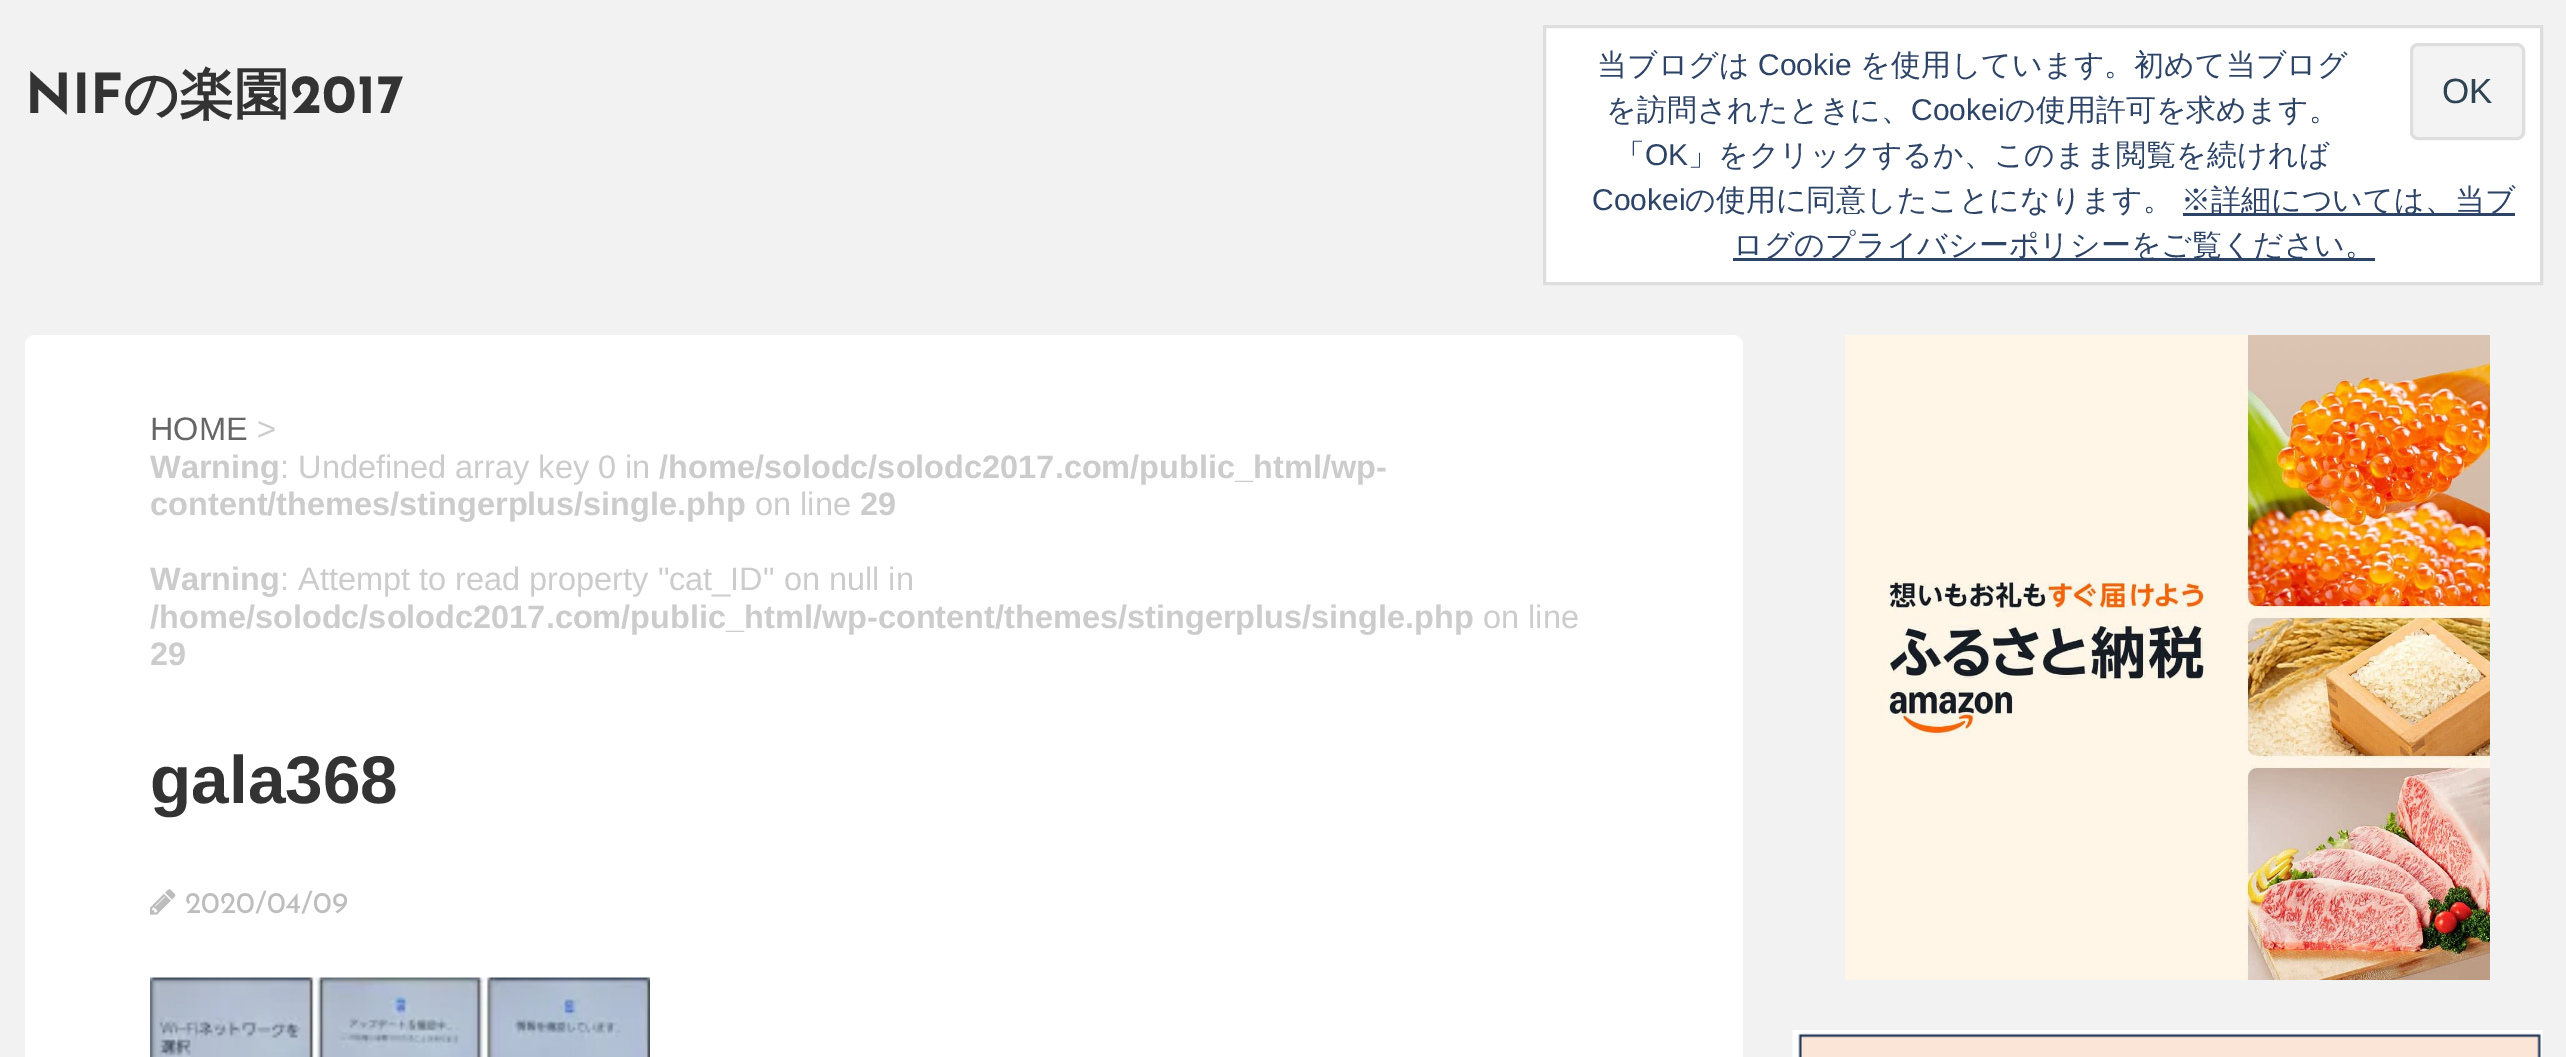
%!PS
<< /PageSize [2566 1057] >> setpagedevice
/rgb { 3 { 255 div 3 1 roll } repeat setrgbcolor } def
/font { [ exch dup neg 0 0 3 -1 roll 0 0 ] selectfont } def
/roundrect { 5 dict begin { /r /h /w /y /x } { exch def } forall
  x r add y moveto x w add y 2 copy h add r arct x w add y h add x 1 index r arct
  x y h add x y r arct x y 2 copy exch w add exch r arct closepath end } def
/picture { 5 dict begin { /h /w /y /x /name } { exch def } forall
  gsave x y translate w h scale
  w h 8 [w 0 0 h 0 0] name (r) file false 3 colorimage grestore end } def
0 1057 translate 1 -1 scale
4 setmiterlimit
242 242 242 rgb
0 0 2566 1057 rectfill
255 255 255 rgb
1544.5 26.5 moveto 2541.5 26.5 lineto 2541.5 283.5 lineto 1544.5 283.5 lineto closepath gsave fill grestore
222 222 222 rgb
3 setlinewidth
stroke
243 243 243 rgb
2411.5 44.5 112 94 6.5 roundrect gsave fill grestore
222 222 222 rgb
stroke
46 68 103 rgb
2183 213 332 3 rectfill
1733 258 642 3 rectfill
255 255 255 rgb
25 335 1718 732 10 roundrect fill
(img/1.rgb) 150 889 26 26 picture
(img/2.rgb) 150 977 500 80 picture
(img/3.rgb) 1845 335 645 645 picture
(img/4.rgb) 1792 1030 751 27 picture
/JosefinSans-Bold 55 font
51 51 51 rgb
25 113 moveto (NIF) show
/WenQuanYiZenHei-Bold 55 font
123 113 moveto (の楽園) show
/JosefinSans-Bold 55 font
290 113 moveto (2017) show
/WenQuanYiZenHei-Medium 30 font
46 68 103 rgb
1597 75 moveto (当ブログは) show
/LiberationSans-Regular 30 font
1758 75 moveto (Cookie) show
/WenQuanYiZenHei-Medium 30 font
1860 75 moveto (を使用しています。初めて当ブログ) show
/LiberationSans-Regular 35 font
46 68 83 rgb
2442 103 moveto (OK) show
/WenQuanYiZenHei-Medium 30 font
46 68 103 rgb
1606 120 moveto (を訪問されたときに、) show
/LiberationSans-Regular 30 font
1911 120 moveto (Cookei) show
/WenQuanYiZenHei-Medium 30 font
2005 120 moveto (の使用許可を求めます。) show
1615 165 moveto (「) show
/LiberationSans-Regular 30 font
1645 165 moveto (OK) show
/WenQuanYiZenHei-Medium 30 font
1688 165 moveto (」をクリックするか、このまま閲覧を続ければ) show
/LiberationSans-Regular 30 font
1592 210 moveto (Cookei) show
/WenQuanYiZenHei-Medium 30 font
[
  [(の使用に同意したことになります。) 1685 210]
  [(※詳細については、当ブ) 2181 210]
  [(ログのプライバシーポリシーをご覧ください。) 1733 255]
] { aload pop moveto show } forall
/LiberationSans-Regular 32.5 font
102 102 102 rgb
150 440 moveto (HOME) show
204 204 204 rgb
257 440 moveto (>) show
/LiberationSans-Bold 32.5 font
150 478 moveto (Warning) show
/LiberationSans-Regular 32.5 font
280 478 moveto (: Undefined array key 0 in) show
/LiberationSans-Bold 32.5 font
659 478 moveto (/home/solodc/solodc2017.com/public_html/wp-) show
150 515 moveto (content/themes/stingerplus/single.php) show
/LiberationSans-Regular 32.5 font
755 515 moveto (on line) show
/LiberationSans-Bold 32.5 font
860 515 moveto (29) show
150 590 moveto (Warning) show
/LiberationSans-Regular 32.5 font
280 590 moveto (: Attempt to read property "cat_ID" on null in) show
/LiberationSans-Bold 32.5 font
150 628 moveto (/home/solodc/solodc2017.com/public_html/wp-content/themes/stingerplus/single.php) show
/LiberationSans-Regular 32.5 font
1483 628 moveto (on line) show
/LiberationSans-Bold 32.5 font
150 665 moveto (29) show
/LiberationSans-Bold 67.5 font
51 51 51 rgb
150 803 moveto (gala368) show
/JosefinSans-Regular 30 font
189 189 189 rgb
185 913 moveto (2020/04/09) show
showpage
